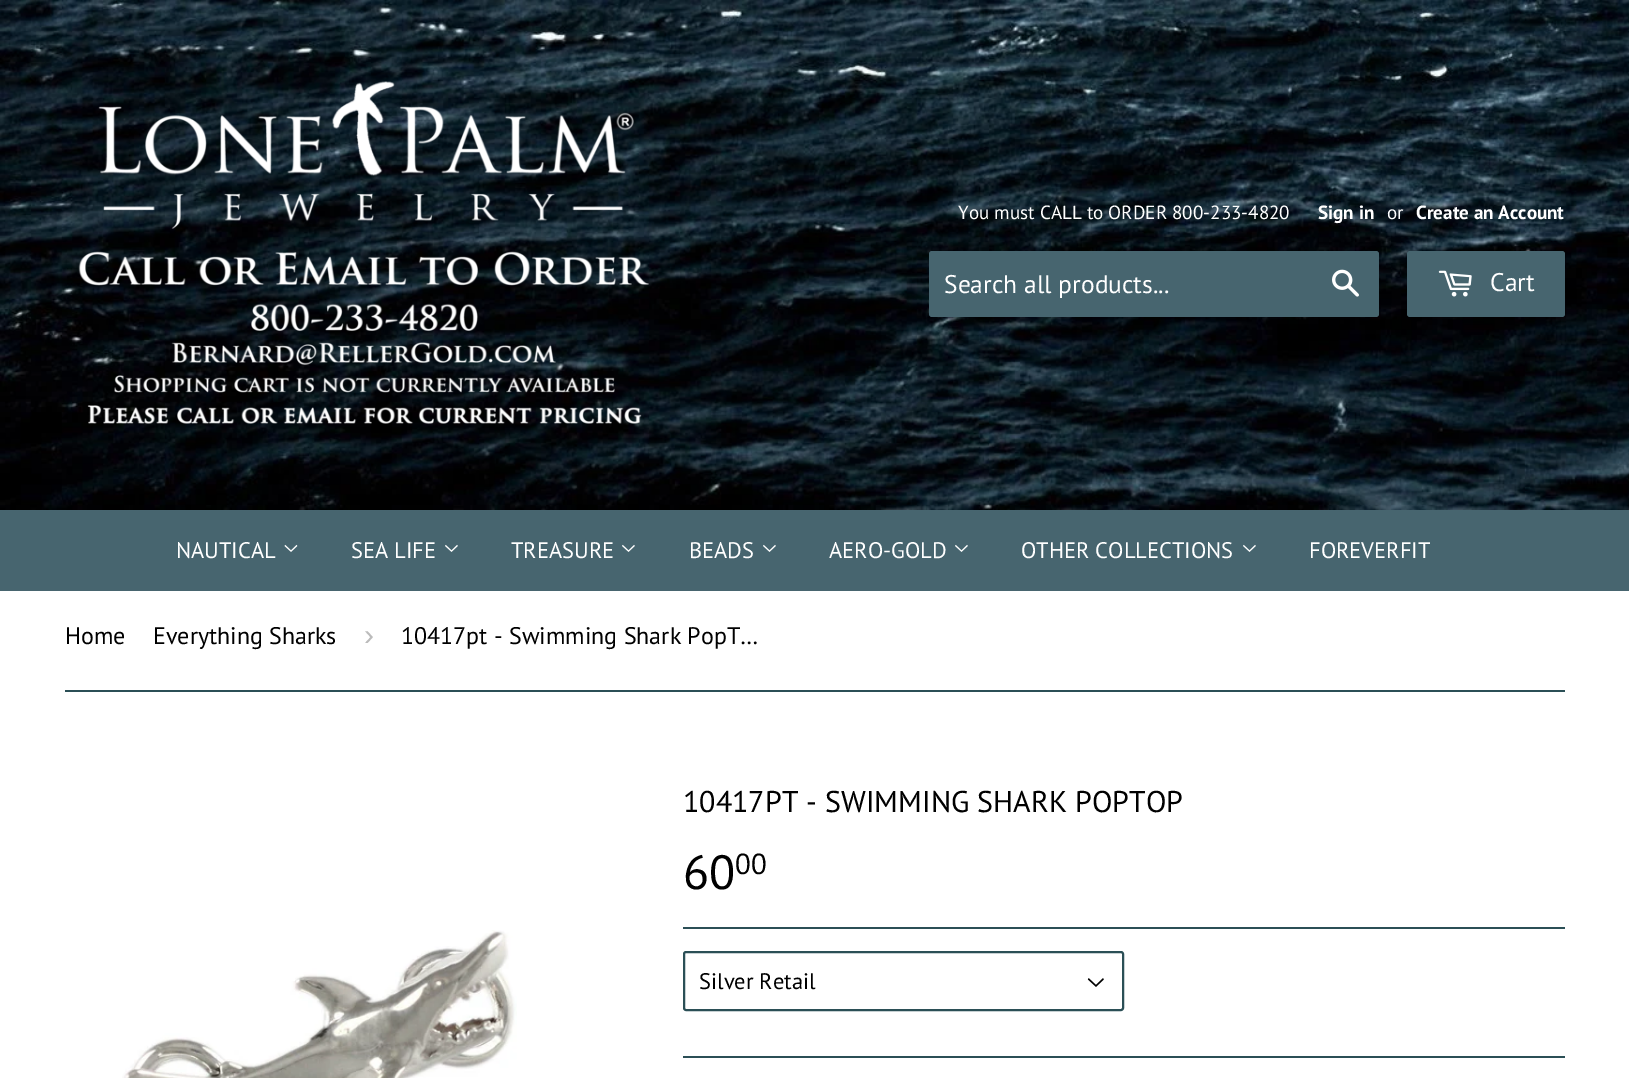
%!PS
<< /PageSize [1629 1078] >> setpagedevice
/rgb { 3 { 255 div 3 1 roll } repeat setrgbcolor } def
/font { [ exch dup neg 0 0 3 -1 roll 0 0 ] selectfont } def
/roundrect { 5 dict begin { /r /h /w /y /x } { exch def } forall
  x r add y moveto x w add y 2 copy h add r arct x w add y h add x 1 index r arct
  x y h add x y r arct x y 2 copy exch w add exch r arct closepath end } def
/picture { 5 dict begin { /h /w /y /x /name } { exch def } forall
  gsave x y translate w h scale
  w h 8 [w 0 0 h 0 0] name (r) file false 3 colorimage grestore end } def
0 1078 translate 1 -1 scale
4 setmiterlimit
255 255 255 rgb
0 0 1629 1078 rectfill
(img/1.rgb) 0 0 1629 510 picture
(img/2.rgb) 78 81 571 343 picture
71 101 111 rgb
929 251 450 66 3 roundrect fill
(img/3.rgb) 1332 269 27 28 picture
1407 251 158 66 3 roundrect fill
(img/4.rgb) 1438 270 34 27 picture
0 510 1629 81 rectfill
(img/5.rgb) 284 544 14 8 picture
(img/6.rgb) 445 544 13 8 picture
(img/6.rgb) 622 544 13 8 picture
(img/6.rgb) 763 544 13 8 picture
(img/6.rgb) 955 544 13 8 picture
(img/6.rgb) 1243 544 13 8 picture
43 79 86 rgb
65 690 1500 2 rectfill
(img/7.rgb) 122 930 395 148 picture
683 927 882 2 rectfill
(img/8.rgb) 1087 978 17 9 picture
2 setlinewidth
684 952 439 58 2 roundrect stroke
683 1056 882 2 rectfill
/PTSans-Regular 19.1 font
255 255 255 rgb
958 219 moveto (You must CALL to ORDER 800-233-4820) show
/PTSans-Bold 19.1 font
1318 219 moveto (Sign in) show
/PTSans-Regular 19.1 font
1387 219 moveto (or) show
/PTSans-Bold 19.1 font
1416 219 moveto (Create an Account) show
/PTSans-Regular 25.5 font
944 293 moveto (Search all products...) show
1490 291 moveto (Cart) show
/PTSans-Regular 22.5 font
[
  [(NAUTICAL) 176 558]
  [(SEA LIFE) 351 558]
  [(TREASURE) 511 558]
  [(BEADS) 689 558]
  [(AERO-GOLD) 829 558]
  [(OTHER COLLECTIONS) 1021 558]
  [(FOREVERFIT) 1309 558]
] { aload pop moveto show } forall
/PTSans-Regular 24 font
0 0 0 rgb
65 644 moveto (Home) show
153 644 moveto (Everything Sharks) show
/LiberationSans-Regular 30 font
187 187 187 rgb
364 645 moveto (›) show
/PTSans-Regular 24 font
0 0 0 rgb
401 644 moveto (10417pt - Swimming Shark PopT…) show
/PTSans-Regular 30 font
683 812 moveto (10417PT - SWIMMING SHARK POPTOP) show
/PTSans-Regular 48 font
683 889 moveto (60) show
/PTSans-Regular 29 font
735 874 moveto (00) show
/PTSans-Regular 22.5 font
699 989 moveto (Silver Retail) show
showpage
